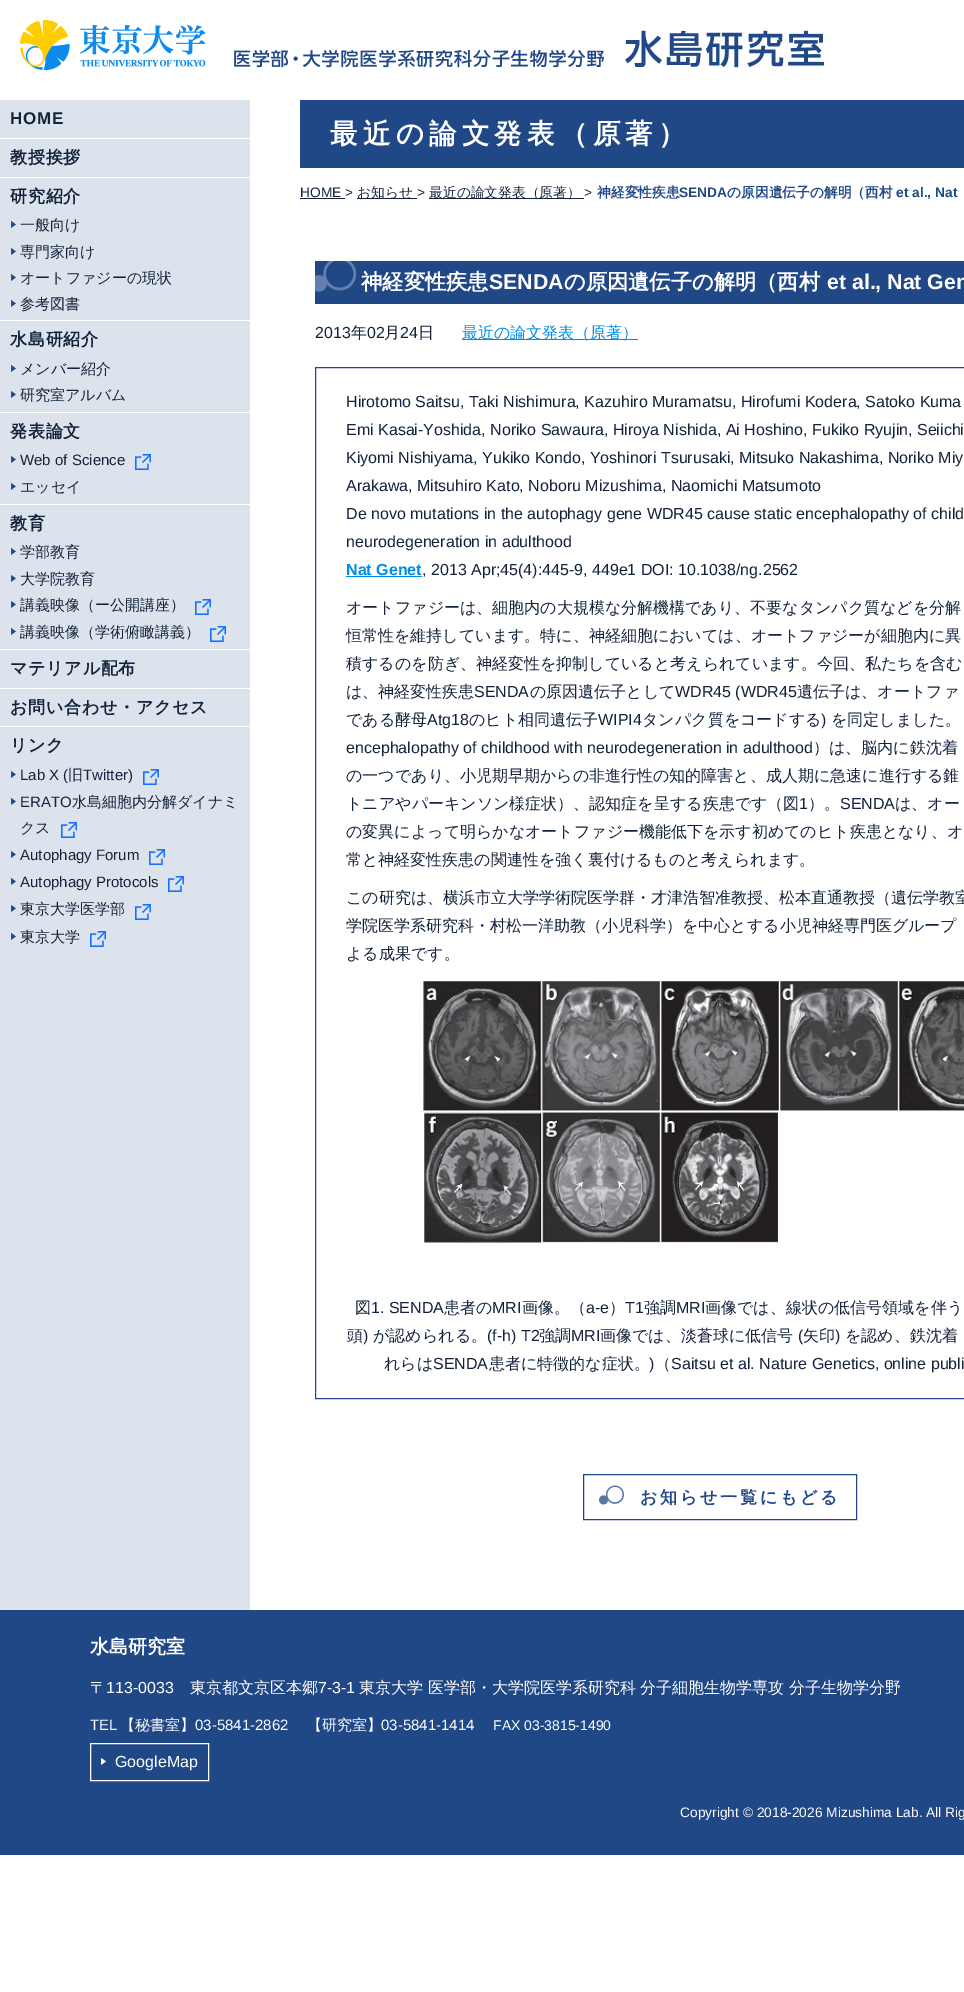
%!PS
<< /PageSize [964 1992] >> setpagedevice
/rgb { 3 { 255 div 3 1 roll } repeat setrgbcolor } def
/font { [ exch dup neg 0 0 3 -1 roll 0 0 ] selectfont } def
/picture { 5 dict begin { /h /w /y /x /name } { exch def } forall
  gsave x y translate w h scale
  w h 8 [w 0 0 h 0 0] name (r) file false 3 colorimage grestore end } def
0 1992 translate 1 -1 scale
4 setmiterlimit
255 255 255 rgb
0 0 964 1992 rectfill
(img/1.rgb) 20 20 804 51 picture
[
  [0 100 250 1510 221 227 236]
  [0 138 250 1 255 255 255]
  [0 177 250 1 255 255 255]
  [0 320 250 1 255 255 255]
] { aload pop rgb rectfill } forall
(img/2.rgb) 11 221 5 7 picture
(img/2.rgb) 11 248 5 7 picture
(img/2.rgb) 11 274 5 7 picture
(img/2.rgb) 11 300 5 7 picture
0 412 250 1 rectfill
(img/2.rgb) 11 365 5 7 picture
(img/2.rgb) 11 391 5 7 picture
0 504 250 1 rectfill
(img/2.rgb) 11 456 5 7 picture
(img/3.rgb) 135 454 16 16 picture
(img/2.rgb) 11 483 5 7 picture
0 649 250 1 rectfill
(img/2.rgb) 11 548 5 7 picture
(img/2.rgb) 11 575 5 7 picture
(img/2.rgb) 11 601 5 7 picture
(img/3.rgb) 195 599 16 16 picture
(img/2.rgb) 11 628 5 7 picture
(img/3.rgb) 210 626 16 16 picture
0 688 250 1 rectfill
0 726 250 1 rectfill
(img/2.rgb) 11 771 5 7 picture
(img/4.rgb) 143 769 16 16 picture
(img/2.rgb) 11 798 5 7 picture
(img/3.rgb) 61 822 16 16 picture
(img/2.rgb) 11 851 5 7 picture
(img/3.rgb) 149 849 16 16 picture
(img/2.rgb) 11 878 5 7 picture
(img/3.rgb) 168 876 16 16 picture
(img/2.rgb) 11 905 5 7 picture
(img/3.rgb) 135 904 16 16 picture
(img/2.rgb) 11 933 5 7 picture
(img/3.rgb) 90 931 16 16 picture
[
  [300 100 664 68 33 72 134]
  [300 198 45 1 19 35 59]
  [357 198 60 1 19 35 59]
  [429 198 155 1 19 35 59]
  [315 261 649 43 33 72 134]
] { aload pop rgb rectfill } forall
(img/5.rgb) 315 261 42 31 picture
0 140 228 rgb
462 339 176 1 rectfill
33 72 134 rgb
315.5 367.5 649 1031 rectstroke
0 140 228 rgb
346 576 76 1 rectfill
(img/6.rgb) 422 978 542 266 picture
(img/7.rgb) 599 1485 25 20 picture
33 72 134 rgb
583.5 1474.5 273 45 rectstroke
0 1610 964 245 rectfill
(img/8.rgb) 101 1758 5 7 picture
255 255 255 rgb
90.5 1743.5 118 37 rectstroke
/LiberationSans-Bold 17 font
19 35 59 rgb
10 124 moveto 0.75 0 (HOME) ashow
/WenQuanYiZenHei-Bold 17 font
10 163 moveto 0.75 0 (教授挨拶) ashow
10 202 moveto 0.75 0 (研究紹介) ashow
/WenQuanYiZenHei-Medium 15 font
[
  [(一般向け) 20 230]
  [(専門家向け) 20 257]
  [(オートファジーの現状) 20 283]
  [(参考図書) 20 309]
] { aload pop moveto show } forall
/WenQuanYiZenHei-Bold 17 font
10 345 moveto 0.75 0 (水島研紹介) ashow
/WenQuanYiZenHei-Medium 15 font
20 374 moveto (メンバー紹介) show
20 400 moveto (研究室アルバム) show
/WenQuanYiZenHei-Bold 17 font
10 437 moveto 0.75 0 (発表論文) ashow
/LiberationSans-Regular 15 font
20 465 moveto (Web of Science) show
/WenQuanYiZenHei-Medium 15 font
20 492 moveto (エッセイ) show
/WenQuanYiZenHei-Bold 17 font
10 529 moveto 0.75 0 (教育) ashow
/WenQuanYiZenHei-Medium 15 font
[
  [(学部教育) 20 557]
  [(大学院教育) 20 584]
  [(講義映像（ー公開講座）) 20 610]
  [(講義映像（学術俯瞰講義）) 20 637]
] { aload pop moveto show } forall
/WenQuanYiZenHei-Bold 17 font
10 674 moveto 0.75 0 (マテリアル配布) ashow
10 713 moveto 0.75 0 (お問い合わせ・アクセス) ashow
10 751 moveto 0.75 0 (リンク) ashow
/LiberationSans-Regular 15 font
20 780 moveto (Lab X \() show
/WenQuanYiZenHei-Medium 15 font
68 780 moveto (旧) show
/LiberationSans-Regular 15 font
83 780 moveto (Twitter\)) show
20 807 moveto (ERATO) show
/WenQuanYiZenHei-Medium 15 font
72 807 moveto (水島細胞内分解ダイナミ) show
20 833 moveto (クス) show
/LiberationSans-Regular 15 font
20 860 moveto (Autophagy Forum) show
20 887 moveto (Autophagy Protocols) show
/WenQuanYiZenHei-Medium 15 font
20 914 moveto (東京大学医学部) show
20 942 moveto (東京大学) show
/WenQuanYiZenHei-Bold 27.5 font
255 255 255 rgb
330 143 moveto 5.25 0 (最近の論文発表（原著）) ashow
/LiberationSans-Regular 13.75 font
19 35 59 rgb
300 197 moveto (HOME >) show
/WenQuanYiZenHei-Medium 13.75 font
357 197 moveto (お知らせ) show
/LiberationSans-Regular 13.75 font
417 197 moveto (>) show
/WenQuanYiZenHei-Medium 13.75 font
429 197 moveto (最近の論文発表（原著）) show
/LiberationSans-Regular 13.75 font
584 197 moveto (>) show
/WenQuanYiZenHei-Bold 13.75 font
33 72 134 rgb
597 197 moveto (神経変性疾患) show
/LiberationSans-Bold 13.75 font
679 197 moveto (SENDA) show
/WenQuanYiZenHei-Bold 13.75 font
727 197 moveto (の原因遺伝子の解明（西村) show
/LiberationSans-Bold 13.75 font
896 197 moveto (et al., Nat) show
/WenQuanYiZenHei-Bold 21.25 font
255 255 255 rgb
361 289 moveto (神経変性疾患) show
/LiberationSans-Bold 21.25 font
489 289 moveto (SENDA) show
/WenQuanYiZenHei-Bold 21.25 font
564 289 moveto (の原因遺伝子の解明（西村) show
/LiberationSans-Bold 21.25 font
827 289 moveto (et al., Nat Gen) show
/LiberationSans-Regular 16 font
19 35 59 rgb
315 338 moveto (2013) show
/WenQuanYiZenHei-Medium 16 font
351 338 moveto (年) show
/LiberationSans-Regular 16 font
367 338 moveto (02) show
/WenQuanYiZenHei-Medium 16 font
384 338 moveto (月) show
/LiberationSans-Regular 16 font
400 338 moveto (24) show
/WenQuanYiZenHei-Medium 16 font
418 338 moveto (日) show
0 140 228 rgb
462 338 moveto (最近の論文発表（原著）) show
/LiberationSans-Regular 16 font
19 35 59 rgb
[
  [(Hirotomo Saitsu, Taki Nishimura, Kazuhiro Muramatsu, Hirofumi Kodera, Satoko Kuma) 346 407]
  [(Emi Kasai-Yoshida, Noriko Sawaura, Hiroya Nishida, Ai Hoshino, Fukiko Ryujin, Seiichi) 346 435]
  [(Kiyomi Nishiyama, Yukiko Kondo, Yoshinori Tsurusaki, Mitsuko Nakashima, Noriko Miy) 346 463]
  [(Arakawa, Mitsuhiro Kato, Noboru Mizushima, Naomichi Matsumoto) 346 491]
  [(De novo mutations in the autophagy gene WDR45 cause static encephalopathy of child) 346 519]
  [(neurodegeneration in adulthood) 346 547]
] { aload pop moveto show } forall
/LiberationSans-Bold 16 font
0 140 228 rgb
346 575 moveto (Nat Genet) show
/LiberationSans-Regular 16 font
19 35 59 rgb
422 575 moveto (, 2013 Apr;45\(4\):445-9, 449e1 DOI: 10.1038/ng.2562) show
/WenQuanYiZenHei-Medium 16 font
[
  [(オートファジーは、細胞内の大規模な分解機構であり、不要なタンパク質などを分解) 346 613]
  [(恒常性を維持しています。特に、神経細胞においては、オートファジーが細胞内に異) 346 641]
  [(積するのを防ぎ、神経変性を抑制していると考えられています。今回、私たちを含む) 346 669]
  [(は、神経変性疾患) 346 697]
] { aload pop moveto show } forall
/LiberationSans-Regular 16 font
474 697 moveto (SENDA) show
/WenQuanYiZenHei-Medium 16 font
530 697 moveto (の原因遺伝子として) show
/LiberationSans-Regular 16 font
675 697 moveto (WDR45 \(WDR45) show
/WenQuanYiZenHei-Medium 16 font
797 697 moveto (遺伝子は、オートファ) show
346 725 moveto (である酵母) show
/LiberationSans-Regular 16 font
427 725 moveto (Atg18) show
/WenQuanYiZenHei-Medium 16 font
469 725 moveto (のヒト相同遺伝子) show
/LiberationSans-Regular 16 font
598 725 moveto (WIPI4) show
/WenQuanYiZenHei-Medium 16 font
642 725 moveto (タンパク質をコードする) show
/LiberationSans-Regular 16 font
821 725 moveto (\)) show
/WenQuanYiZenHei-Medium 16 font
831 725 moveto (を同定しました。) show
/LiberationSans-Regular 16 font
346 753 moveto (encephalopathy of childhood with neurodegeneration in adulthood) show
/WenQuanYiZenHei-Medium 16 font
[
  [(）は、脳内に鉄沈着) 813 753]
  [(の一つであり、小児期早期からの非進行性の知的障害と、成人期に急速に進行する錐) 346 781]
  [(トニアやパーキンソン様症状）、認知症を呈する疾患です（図) 346 809]
] { aload pop moveto show } forall
/LiberationSans-Regular 16 font
799 809 moveto (1) show
/WenQuanYiZenHei-Medium 16 font
808 809 moveto (）。) show
/LiberationSans-Regular 16 font
840 809 moveto (SENDA) show
/WenQuanYiZenHei-Medium 16 font
[
  [(は、オー) 895 809]
  [(の変異によって明らかなオートファジー機能低下を示す初めてのヒト疾患となり、オ) 346 837]
  [(常と神経変性疾患の関連性を強く裏付けるものと考えられます。) 346 865]
  [(この研究は、横浜市立大学学術院医学群・才津浩智准教授、松本直通教授（遺伝学教室) 346 903]
  [(学院医学系研究科・村松一洋助教（小児科学）を中心とする小児神経専門医グループ) 346 931]
  [(よる成果です。) 346 959]
  [(図) 355 1313]
] { aload pop moveto show } forall
/LiberationSans-Regular 16 font
371 1313 moveto (1. SENDA) show
/WenQuanYiZenHei-Medium 16 font
444 1313 moveto (患者の) show
/LiberationSans-Regular 16 font
492 1313 moveto (MRI) show
/WenQuanYiZenHei-Medium 16 font
522 1313 moveto (画像。（) show
/LiberationSans-Regular 16 font
586 1313 moveto (a-e) show
/WenQuanYiZenHei-Medium 16 font
609 1313 moveto (）) show
/LiberationSans-Regular 16 font
625 1313 moveto (T1) show
/WenQuanYiZenHei-Medium 16 font
644 1313 moveto (強調) show
/LiberationSans-Regular 16 font
676 1313 moveto (MRI) show
/WenQuanYiZenHei-Medium 16 font
705 1313 moveto (画像では、線状の低信号領域を伴う) show
347 1341 moveto (頭) show
/LiberationSans-Regular 16 font
363 1341 moveto (\)) show
/WenQuanYiZenHei-Medium 16 font
373 1341 moveto (が認められる。) show
/LiberationSans-Regular 16 font
487 1341 moveto (\(f-h\) T2) show
/WenQuanYiZenHei-Medium 16 font
539 1341 moveto (強調) show
/LiberationSans-Regular 16 font
571 1341 moveto (MRI) show
/WenQuanYiZenHei-Medium 16 font
600 1341 moveto (画像では、淡蒼球に低信号) show
/LiberationSans-Regular 16 font
798 1341 moveto (\() show
/WenQuanYiZenHei-Medium 16 font
803 1341 moveto (矢印) show
/LiberationSans-Regular 16 font
835 1341 moveto (\)) show
/WenQuanYiZenHei-Medium 16 font
845 1341 moveto (を認め、鉄沈着) show
384 1369 moveto (れらは) show
/LiberationSans-Regular 16 font
433 1369 moveto (SENDA) show
/WenQuanYiZenHei-Medium 16 font
489 1369 moveto (患者に特徴的な症状。) show
/LiberationSans-Regular 16 font
649 1369 moveto (\)) show
/WenQuanYiZenHei-Medium 16 font
655 1369 moveto (（) show
/LiberationSans-Regular 16 font
671 1369 moveto (Saitsu et al. Nature Genetics, online publi) show
/WenQuanYiZenHei-Bold 17 font
33 72 134 rgb
640 1503 moveto 2.75 0 (お知らせ一覧にもどる) ashow
/WenQuanYiZenHei-Bold 19 font
255 255 255 rgb
90 1653 moveto (水島研究室) show
/WenQuanYiZenHei-Medium 16 font
90 1693 moveto (〒) show
/LiberationSans-Regular 16 font
106 1693 moveto (113-0033) show
/WenQuanYiZenHei-Medium 16 font
190 1693 moveto (東京都文京区本郷) show
/LiberationSans-Regular 16 font
318 1693 moveto (7-3-1) show
/WenQuanYiZenHei-Medium 16 font
359 1693 moveto (東京大学 医学部・大学院医学系研究科) show
640 1693 moveto (分子細胞生物学専攻 分子生物学分野) show
/LiberationSans-Regular 15 font
90 1730 moveto (TEL) show
/WenQuanYiZenHei-Medium 15 font
120 1730 moveto (【秘書室】) show
/LiberationSans-Regular 15 font
195 1730 moveto (03-5841-2862) show
/WenQuanYiZenHei-Medium 15 font
307 1730 moveto (【研究室】) show
/LiberationSans-Regular 15 font
381 1730 moveto (03-5841-1414) show
/LiberationSans-Regular 14 font
493 1730 moveto (FAX 03-3815-1490) show
/LiberationSans-Regular 16 font
115 1767 moveto (GoogleMap) show
/LiberationSans-Regular 13.75 font
680 1817 moveto (Copyright © 2018-2026 Mizushima Lab. All Rig) show
showpage
